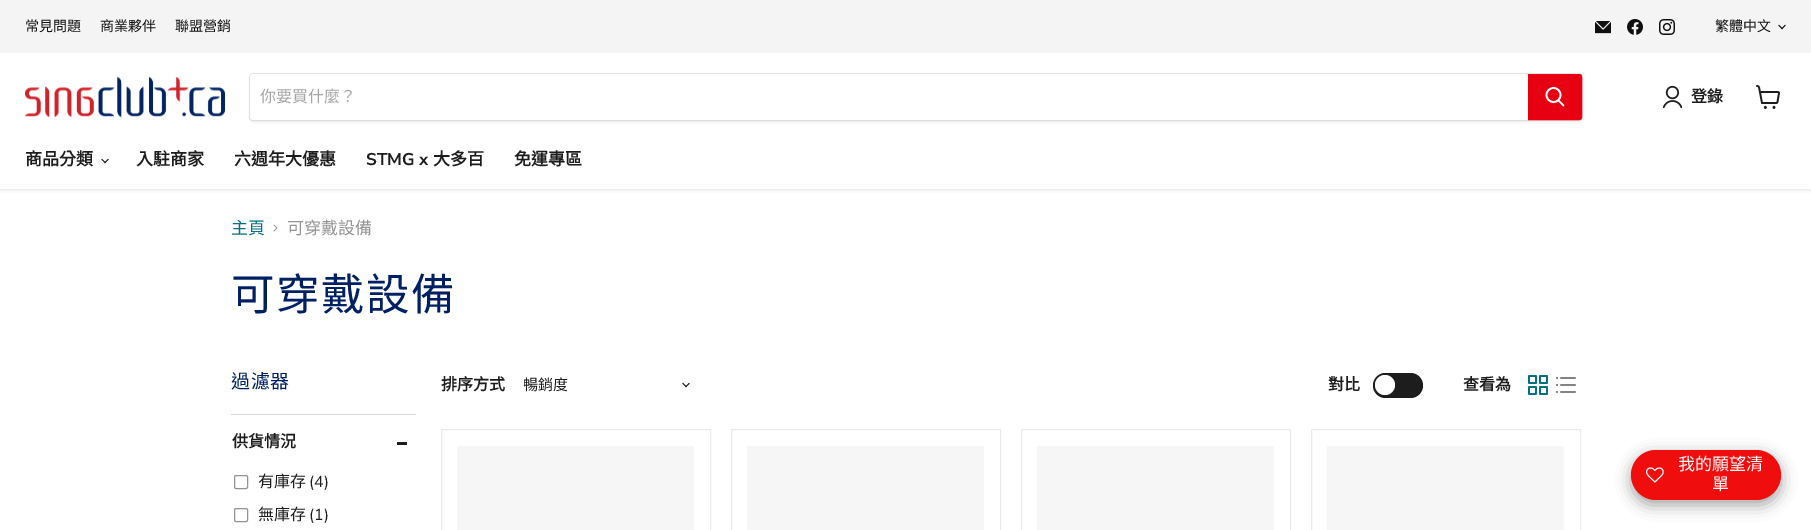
%!PS
<< /PageSize [1811 530] /PageUsesTransparency true >> setpagedevice
/rgb { 3 { 255 div 3 1 roll } repeat setrgbcolor } def
/font { [ exch dup neg 0 0 3 -1 roll 0 0 ] selectfont } def
/alpha { dup .setfillconstantalpha .setstrokeconstantalpha } def
/circle { newpath 0 360 arc closepath } def
/roundrect { 5 dict begin { /r /h /w /y /x } { exch def } forall
  x r add y moveto x w add y 2 copy h add r arct x w add y h add x 1 index r arct
  x y h add x y r arct x y 2 copy exch w add exch r arct closepath end } def
/shadow { 12 dict begin { /a /b /q /h /w /y /x } { exch def } forall gsave /was 0 def
  9 -2 -9 { dup b mul 4 div /e exch def 1 sub .425 mul 2.718 exch exp 1 add a .99 .min exch div /now exch def
    1 1 now sub 1 was sub div sub alpha /was now def
    w h .min e 2 mul add 0 gt { x e sub y e sub w e 2 mul add h e 2 mul add
      q e add b .6 mul add w h .min 2 div e add .min 0 .max roundrect fill } if } for grestore end } def
/picture { 5 dict begin { /h /w /y /x /name } { exch def } forall
  gsave x y translate w h scale
  w h 8 [w 0 0 h 0 0] name (r) file false 3 colorimage grestore end } def
0 .pushpdf14devicefilter
0 530 translate 1 -1 scale
4 setmiterlimit
255 255 255 rgb
0 0 1811 530 rectfill
gsave
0 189 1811 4 rectclip
128 128 128 rgb
0 55 1811 135 0 2 0.25 shadow
grestore
244 244 244 rgb
0 0 1811 53 rectfill
255 255 255 rgb
0 53 1811 1 rectfill
(img/1.rgb) 1595 21 16 13 picture
(img/2.rgb) 1627 19 16 16 picture
(img/3.rgb) 1659 19 16 16 picture
(img/4.rgb) 1778 24 8 6 picture
(img/5.rgb) 25 76 200 42 picture
128 128 128 rgb
249 75 1334 48 4 1.5 0.11 shadow
0.2 alpha
249.5 73.5 1333 47 3.5 roundrect stroke
1 alpha
255 255 255 rgb
253 74 moveto 1528 74 lineto 1528 120 lineto 253 120 lineto 251.5 120 250 118.5 250 117 curveto 250 77 lineto 250 75.5 251.5 74 253 74 curveto closepath fill
230 0 18 rgb
1528.5 74.5 moveto 1579 74.5 lineto 1580.5 74.5 1581.5 75.5 1581.5 77 curveto 1581.5 117 lineto 1581.5 118.5 1580.5 119.5 1579 119.5 curveto 1528.5 119.5 lineto closepath gsave fill grestore
stroke
255 255 255 rgb
1.7 setlinewidth
1 setlinecap
1563.5 105.5 moveto 1558.5 100.5 lineto stroke
0 setlinecap
1553.5 95 7 circle stroke
(img/6.rgb) 1662 85 20 24 picture
(img/7.rgb) 1756 85 24 24 picture
(img/8.rgb) 101 158 8 6 picture
(img/9.rgb) 273 224 5 8 picture
217 217 217 rgb
231 414 185 1 rectfill
29 29 29 rgb
397 442 10 3 rectfill
148 148 148 rgb
1 setlinewidth
234.5 475.5 13 13 1.5 roundrect stroke
234.5 508.5 13 13 1.5 roundrect stroke
(img/8.rgb) 682 382 8 6 picture
29 29 29 rgb
1373 373 50 25 12.5 roundrect fill
255 255 255 rgb
1385 385 10 circle fill
(img/10.rgb) 1528 375 20 20 picture
(img/11.rgb) 1556 377 20 16 picture
235 235 235 rgb
441.5 429.5 269 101 rectstroke
246 246 246 rgb
457 446 237 84 rectfill
235 235 235 rgb
731.5 429.5 269 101 rectstroke
246 246 246 rgb
747 446 237 84 rectfill
235 235 235 rgb
1021.5 429.5 269 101 rectstroke
246 246 246 rgb
1037 446 237 84 rectfill
235 235 235 rgb
1311.5 429.5 269 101 rectstroke
246 246 246 rgb
1327 446 237 84 rectfill
0 0 0 rgb
1631 455 150 50 25 7.5 0.35 shadow
240 13 13 rgb
1631 450 150 50 25 roundrect fill
(img/12.rgb) 1646 467 18 16 picture
/NotoSansCJKTC-Regular 14 font
16 15 15 rgb
[
  [(常見問題) 25 31]
  [(商業夥伴) 100 31]
  [(聯盟營銷) 175 31]
  [(繁體中文) 1715 31]
] { aload pop moveto show } forall
/NotoSansCJKTC-Regular 16 font
165 165 165 rgb
260 102 moveto (你要買什麼？) show
/NotoSansCJKTC-Bold 16 font
29 29 29 rgb
1691 102 moveto (登錄) show
/NotoSansCJKTC-Bold 17 font
[
  [(商品分類) 25 165]
  [(入駐商家) 136 165]
  [(六週年大優惠) 234 165]
] { aload pop moveto show } forall
/NunitoSans-Bold 17 font
366 165 moveto (STMG x) show
/NotoSansCJKTC-Bold 17 font
433 165 moveto (大多百) show
514 165 moveto (免運專區) show
/NotoSansCJKTC-Regular 17 font
4 110 130 rgb
231 234 moveto (主頁) show
148 148 148 rgb
287 234 moveto (可穿戴設備) show
/NotoSansCJKTC-Regular 43.5 font
0 32 99 rgb
231 310 moveto 1.5 0 (可穿戴設備) ashow
/NotoSansCJKTC-Regular 19 font
231 388 moveto 0.5 0 (過濾器) ashow
/NotoSansCJKTC-Bold 16 font
29 29 29 rgb
232 447 moveto (供貨情況) show
/NotoSansCJKTC-Regular 16 font
258 487 moveto (有庫存) show
/NunitoSans-Regular 16 font
309 487 moveto (\(4\)) show
/NotoSansCJKTC-Regular 16 font
258 520 moveto (無庫存) show
/NunitoSans-Regular 16 font
309 520 moveto (\(1\)) show
/NotoSansCJKTC-Bold 16 font
441 390 moveto (排序方式) show
/NotoSansCJKTC-Regular 15 font
523 390 moveto (暢銷度) show
/NotoSansCJKTC-Bold 16 font
1328 390 moveto (對比) show
1463 390 moveto (查看為) show
/NotoSansCJKTC-Regular 17 font
255 255 255 rgb
1678 470 moveto (我的願望清) show
1712 490 moveto (單) show
.poppdf14devicefilter showpage
